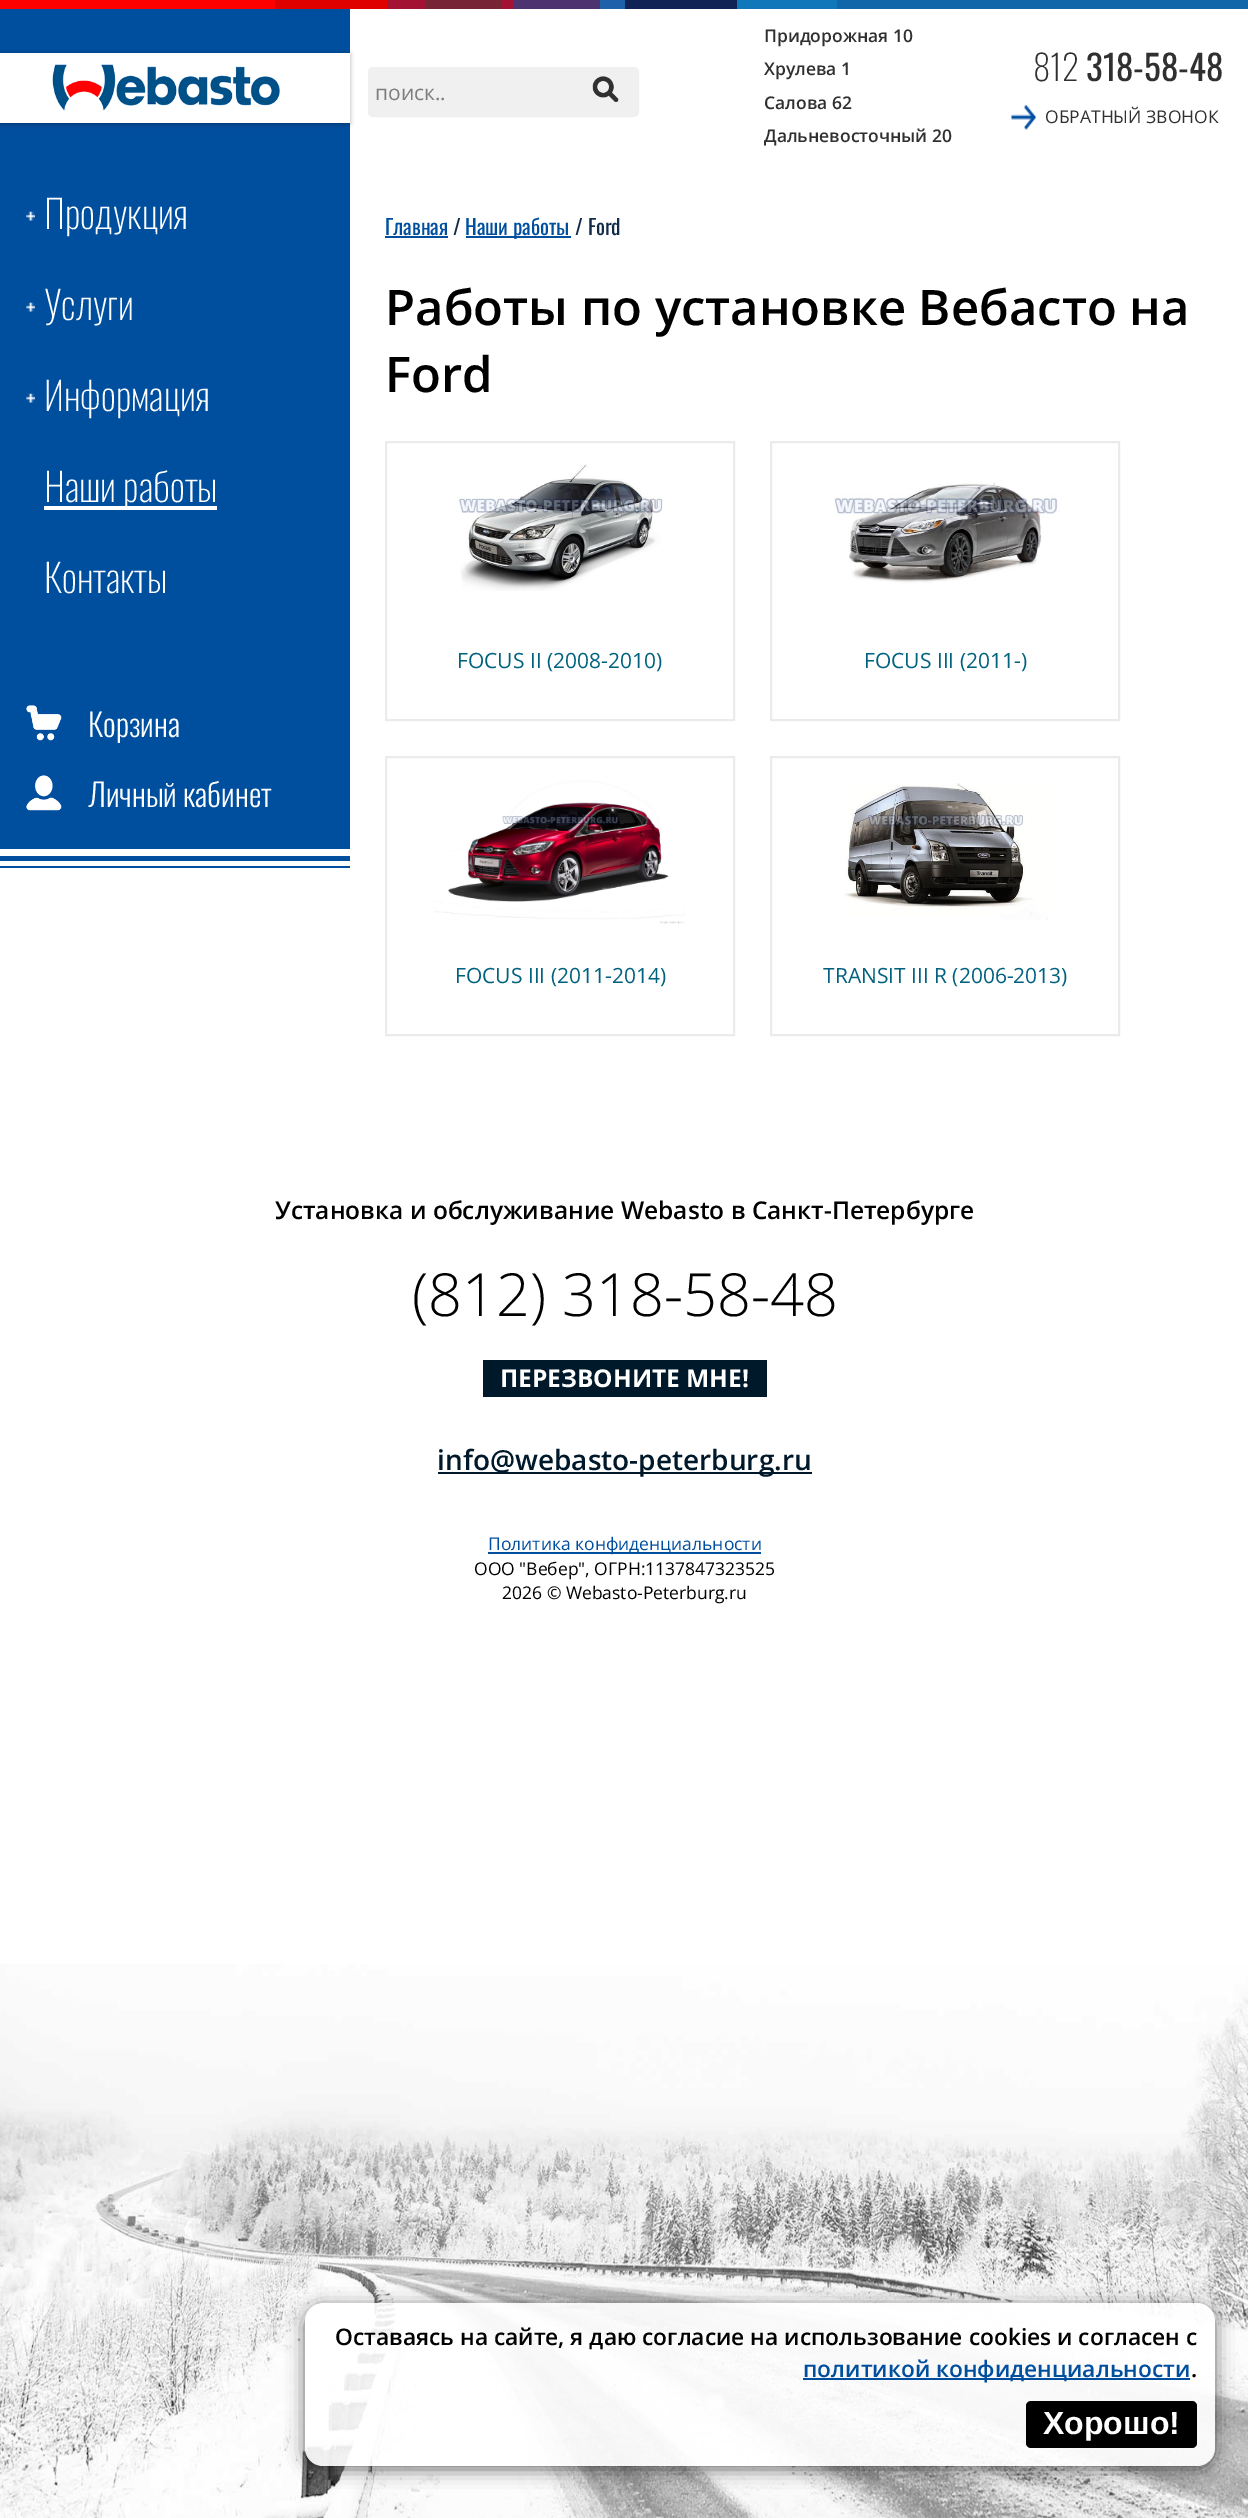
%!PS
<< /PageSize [1248 2518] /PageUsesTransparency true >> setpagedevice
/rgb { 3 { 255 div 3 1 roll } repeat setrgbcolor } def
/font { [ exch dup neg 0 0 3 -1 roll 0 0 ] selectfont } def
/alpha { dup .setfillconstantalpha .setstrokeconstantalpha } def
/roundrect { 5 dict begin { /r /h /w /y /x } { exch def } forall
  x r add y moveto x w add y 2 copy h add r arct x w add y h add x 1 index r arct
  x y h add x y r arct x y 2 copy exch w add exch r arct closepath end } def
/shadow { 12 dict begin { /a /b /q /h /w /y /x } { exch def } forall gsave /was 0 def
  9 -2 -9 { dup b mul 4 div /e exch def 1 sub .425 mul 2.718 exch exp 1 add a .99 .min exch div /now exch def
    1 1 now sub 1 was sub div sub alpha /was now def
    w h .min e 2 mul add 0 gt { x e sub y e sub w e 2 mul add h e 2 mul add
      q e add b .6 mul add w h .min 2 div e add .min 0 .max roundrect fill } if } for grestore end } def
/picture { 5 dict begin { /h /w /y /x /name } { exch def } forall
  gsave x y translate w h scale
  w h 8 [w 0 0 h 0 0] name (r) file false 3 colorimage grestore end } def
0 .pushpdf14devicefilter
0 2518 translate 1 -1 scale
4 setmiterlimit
255 255 255 rgb
0 0 1248 2518 rectfill
(img/1.rgb) 0 1964 1248 554 picture
[
  [0 0 275 9 255 0 0]
  [275 0 112 9 223 0 0]
  [387 0 38 9 164 18 51]
  [425 0 76 9 120 36 55]
  [501 0 12 9 164 18 51]
  [513 0 87 9 77 52 112]
  [600 0 25 9 30 96 170]
  [625 0 112 9 17 34 85]
  [737 0 100 9 17 119 187]
  [837 0 411 9 17 102 170]
] { aload pop rgb rectfill } forall
240 240 240 rgb
369 68 269 48 4 roundrect gsave fill grestore
2 setlinewidth
stroke
(img/2.rgb) 592 76 27 26 picture
(img/3.rgb) 1011 105 25 25 picture
0 79 159 rgb
0 9 350 840 rectfill
0 0 0 rgb
-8 54 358 70 0 2.5 0.3 shadow
255 255 255 rgb
0 53 350 70 rectfill
(img/4.rgb) 52 64 228 47 picture
(img/5.rgb) 26 211 9 10 picture
(img/5.rgb) 26 302 9 10 picture
(img/5.rgb) 26 393 9 10 picture
44 506 173 4 rectfill
(img/6.rgb) 26 705 36 36 picture
(img/7.rgb) 26 775 36 36 picture
[
  [0 856 350 5 0 79 159]
  [0 866 350 2 0 79 159]
  [385 236 63 2 0 79 159]
  [466 236 105 2 0 79 159]
] { aload pop rgb rectfill } forall
235 235 235 rgb
386 442 348 278 rectstroke
(img/8.rgb) 459 463 204 128 picture
771 442 348 278 rectstroke
(img/9.rgb) 833 482 225 102 picture
386 757 348 278 rectstroke
(img/10.rgb) 434 780 252 144 picture
771 757 348 278 rectstroke
(img/11.rgb) 843 783 205 137 picture
[
  [483 1360 284 37 0 25 42]
  [438 1472 374 2 0 25 42]
  [488 1552 273 2 0 79 159]
] { aload pop rgb rectfill } forall
gsave
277 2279 moveto 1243 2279 lineto 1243 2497 lineto 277 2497 lineto closepath 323 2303 moveto 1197 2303 lineto 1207 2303 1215 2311 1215 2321 curveto 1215 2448 lineto 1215 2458 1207 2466 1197 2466 curveto 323 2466 lineto 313 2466 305 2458 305 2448 curveto 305 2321 lineto 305 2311 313 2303 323 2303 curveto closepath eoclip newpath
0 0 0 rgb
305 2307 910 162 18 9 0.6 shadow
grestore
0.9 alpha
255 255 255 rgb
305 2303 910 163 18 roundrect fill
1 alpha
0 79 159 rgb
803 2378 387 2 rectfill
0 0 0 rgb
1026 2401 171 47 5 roundrect fill
/OpenSans-Regular 21 font
125 125 125 rgb
375 100 moveto (поиск..) show
/OpenSans-SemiBold 17.5 font
48 48 48 rgb
[
  [(Придорожная 10) 764 42]
  [(Хрулева 1) 764 75]
  [(Салова 62) 764 109]
  [(Дальневосточный 20) 764 142]
] { aload pop moveto show } forall
/Oswald-ExtraLight 35 font
1033 81 moveto (812) show
/Oswald-Regular 35 font
1086 81 moveto (318-58-48) show
/OpenSans-Regular 17.5 font
1045 123 moveto (ОБРАТНЫЙ ЗВОНОК) show
/Oswald-ExtraLight 38.5 font
255 255 255 rgb
[
  [(Продукция) 44 229]
  [(Услуги) 44 320]
  [(Информация) 44 411]
  [(Наши работы) 44 502]
  [(Контакты) 44 593]
] { aload pop moveto show } forall
/Oswald-Light 31.5 font
88 737 moveto (Корзина) show
88 807 moveto (Личный кабинет) show
/Oswald-Regular 21 font
0 79 159 rgb
385 235 moveto (Главная) show
18 42 73 rgb
453 235 moveto (/) show
0 79 159 rgb
465 235 moveto (Наши работы) show
18 42 73 rgb
575 235 moveto (/ Ford) show
/OpenSans-SemiBold 49 font
0 0 0 rgb
385 325 moveto (Работы по установке Вебасто на) show
385 392 moveto (Ford) show
/OpenSans-Regular 21 font
0 98 127 rgb
[
  [(FOCUS II \(2008-2010\)) 457 668]
  [(FOCUS III \(2011-\)) 864 668]
  [(FOCUS III \(2011-2014\)) 455 983]
  [(TRANSIT III R \(2006-2013\)) 823 983]
] { aload pop moveto show } forall
/OpenSans-SemiBold 24.5 font
0 0 0 rgb
275 1219 moveto (Установка и обслуживание Webasto в Санкт-Петербурге) show
/OpenSans-Light 59.5 font
412 1316 moveto (\(812\) 318-58-48) show
/OpenSans-Bold 24.5 font
255 255 255 rgb
500 1387 moveto (ПЕРЕЗВОНИТЕ МНЕ!) show
/OpenSans-SemiBold 28 font
0 25 42 rgb
437 1470 moveto (info@webasto-peterburg.ru) show
/OpenSans-Regular 17.5 font
0 79 159 rgb
488 1550 moveto (Политика конфиденциальности) show
0 0 0 rgb
474 1575 moveto (ООО "Вебер", ОГРН:1137847323525) show
502 1599 moveto (2026 © Webasto-Peterburg.ru) show
/OpenSans-SemiBold 22.75 font
335 2345 moveto (Оставаясь на сайте, я даю согласие на использование cookies и согласен с) show
0 79 159 rgb
803 2377 moveto (политикой конфиденциальности) show
0 0 0 rgb
1191 2377 moveto (.) show
/LiberationSans-Bold 32 font
255 255 255 rgb
1043 2434 moveto (Хорошо!) show
.poppdf14devicefilter showpage
